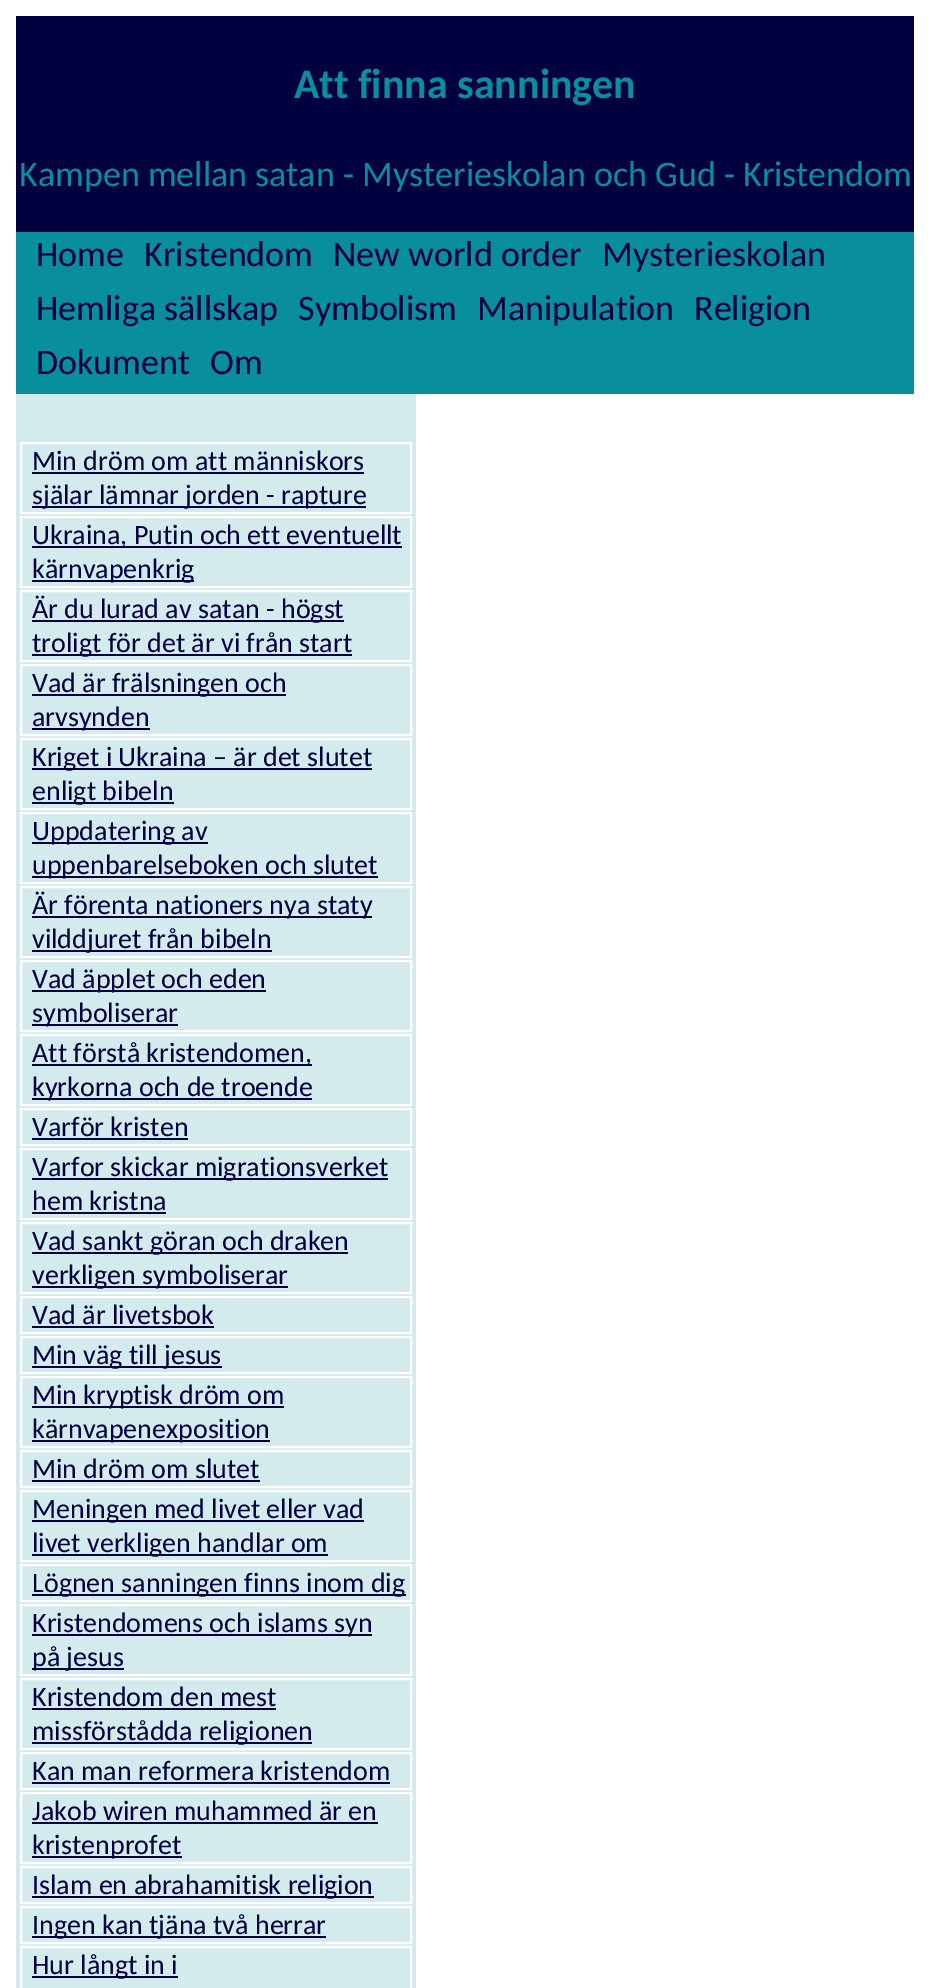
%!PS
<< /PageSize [930 1988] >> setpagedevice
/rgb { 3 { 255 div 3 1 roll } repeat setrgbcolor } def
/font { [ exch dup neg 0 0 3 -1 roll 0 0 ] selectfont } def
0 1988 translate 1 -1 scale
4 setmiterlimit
255 255 255 rgb
0 0 930 1988 rectfill
[
  [16 16 898 216 0 0 64]
  [16 232 898 162 9 142 157]
  [16 394 400 1594 211 235 237]
] { aload pop rgb rectfill } forall
255 255 255 rgb
2 setlinewidth
21 443 390 70 rectstroke
0 0 64 rgb
32 472 332 2 rectfill
32 506 334 2 rectfill
255 255 255 rgb
21 517 390 70 rectstroke
0 0 64 rgb
32 546 370 2 rectfill
32 580 162 2 rectfill
255 255 255 rgb
21 591 390 70 rectstroke
0 0 64 rgb
32 620 312 2 rectfill
32 654 320 2 rectfill
255 255 255 rgb
21 665 390 70 rectstroke
0 0 64 rgb
32 694 254 2 rectfill
32 728 118 2 rectfill
255 255 255 rgb
21 739 390 70 rectstroke
0 0 64 rgb
32 768 340 2 rectfill
32 802 142 2 rectfill
255 255 255 rgb
21 813 390 70 rectstroke
0 0 64 rgb
32 842 176 2 rectfill
32 876 346 2 rectfill
255 255 255 rgb
21 887 390 70 rectstroke
0 0 64 rgb
32 916 340 2 rectfill
32 950 240 2 rectfill
255 255 255 rgb
21 961 390 70 rectstroke
0 0 64 rgb
32 990 234 2 rectfill
32 1024 146 2 rectfill
255 255 255 rgb
21 1035 390 70 rectstroke
0 0 64 rgb
32 1064 280 2 rectfill
32 1098 280 2 rectfill
255 255 255 rgb
21 1109 390 36 rectstroke
0 0 64 rgb
32 1138 156 2 rectfill
255 255 255 rgb
21 1149 390 70 rectstroke
0 0 64 rgb
32 1178 356 2 rectfill
32 1212 134 2 rectfill
255 255 255 rgb
21 1223 390 70 rectstroke
0 0 64 rgb
32 1252 316 2 rectfill
32 1286 256 2 rectfill
255 255 255 rgb
21 1297 390 36 rectstroke
0 0 64 rgb
32 1326 182 2 rectfill
255 255 255 rgb
21 1337 390 36 rectstroke
0 0 64 rgb
32 1366 190 2 rectfill
255 255 255 rgb
21 1377 390 70 rectstroke
0 0 64 rgb
32 1406 252 2 rectfill
32 1440 238 2 rectfill
255 255 255 rgb
21 1451 390 36 rectstroke
0 0 64 rgb
32 1480 228 2 rectfill
255 255 255 rgb
21 1491 390 70 rectstroke
0 0 64 rgb
32 1520 332 2 rectfill
32 1554 296 2 rectfill
255 255 255 rgb
21 1565 390 36 rectstroke
0 0 64 rgb
32 1594 374 2 rectfill
255 255 255 rgb
21 1605 390 70 rectstroke
0 0 64 rgb
32 1634 340 2 rectfill
32 1668 92 2 rectfill
255 255 255 rgb
21 1679 390 70 rectstroke
0 0 64 rgb
32 1708 244 2 rectfill
32 1742 280 2 rectfill
255 255 255 rgb
21 1753 390 36 rectstroke
0 0 64 rgb
32 1782 358 2 rectfill
255 255 255 rgb
21 1793 390 70 rectstroke
0 0 64 rgb
32 1822 346 2 rectfill
32 1856 150 2 rectfill
255 255 255 rgb
21 1867 390 36 rectstroke
0 0 64 rgb
32 1896 342 2 rectfill
255 255 255 rgb
21 1907 390 36 rectstroke
0 0 64 rgb
32 1936 294 2 rectfill
255 255 255 rgb
21 1947 390 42 rectstroke
0 0 64 rgb
32 1976 146 2 rectfill
/Carlito-Bold 42 font
9 142 157 rgb
294 98 moveto (Att finna sanningen) show
/Carlito-Regular 36 font
19 186 moveto (Kampen mellan satan - Mysterieskolan och Gud - Kristendom) show
0 0 64 rgb
[
  [(Home) 36 266]
  [(Kristendom) 144 266]
  [(New world order) 333 266]
  [(Mysterieskolan) 602 266]
  [(Hemliga sällskap) 36 320]
  [(Symbolism) 298 320]
  [(Manipulation) 477 320]
  [(Religion) 694 320]
  [(Dokument) 36 374]
  [(Om) 210 374]
] { aload pop moveto show } forall
/Carlito-Regular 28 font
[
  [(Min dröm om att människors) 32 470]
  [(själar lämnar jorden - rapture) 32 504]
  [(Ukraina, Putin och ett eventuellt) 32 544]
  [(kärnvapenkrig) 32 578]
  [(Är du lurad av satan - högst) 32 618]
  [(troligt för det är vi från start) 32 652]
  [(Vad är frälsningen och) 32 692]
  [(arvsynden) 32 726]
  [(Kriget i Ukraina – är det slutet) 32 766]
  [(enligt bibeln) 32 800]
  [(Uppdatering av) 32 840]
  [(uppenbarelseboken och slutet) 32 874]
  [(Är förenta nationers nya staty) 32 914]
  [(vilddjuret från bibeln) 32 948]
  [(Vad äpplet och eden) 32 988]
  [(symboliserar) 32 1022]
  [(Att förstå kristendomen,) 32 1062]
  [(kyrkorna och de troende) 32 1096]
  [(Varför kristen) 32 1136]
  [(Varfor skickar migrationsverket) 32 1176]
  [(hem kristna) 32 1210]
  [(Vad sankt göran och draken) 32 1250]
  [(verkligen symboliserar) 32 1284]
  [(Vad är livetsbok) 32 1324]
  [(Min väg till jesus) 32 1364]
  [(Min kryptisk dröm om) 32 1404]
  [(kärnvapenexposition) 32 1438]
  [(Min dröm om slutet) 32 1478]
  [(Meningen med livet eller vad) 32 1518]
  [(livet verkligen handlar om) 32 1552]
  [(Lögnen sanningen finns inom dig) 32 1592]
  [(Kristendomens och islams syn) 32 1632]
  [(på jesus) 32 1666]
  [(Kristendom den mest) 32 1706]
  [(missförstådda religionen) 32 1740]
  [(Kan man reformera kristendom) 32 1780]
  [(Jakob wiren muhammed är en) 32 1820]
  [(kristenprofet) 32 1854]
  [(Islam en abrahamitisk religion) 32 1894]
  [(Ingen kan tjäna två herrar) 32 1934]
  [(Hur långt in i) 32 1974]
] { aload pop moveto show } forall
showpage
